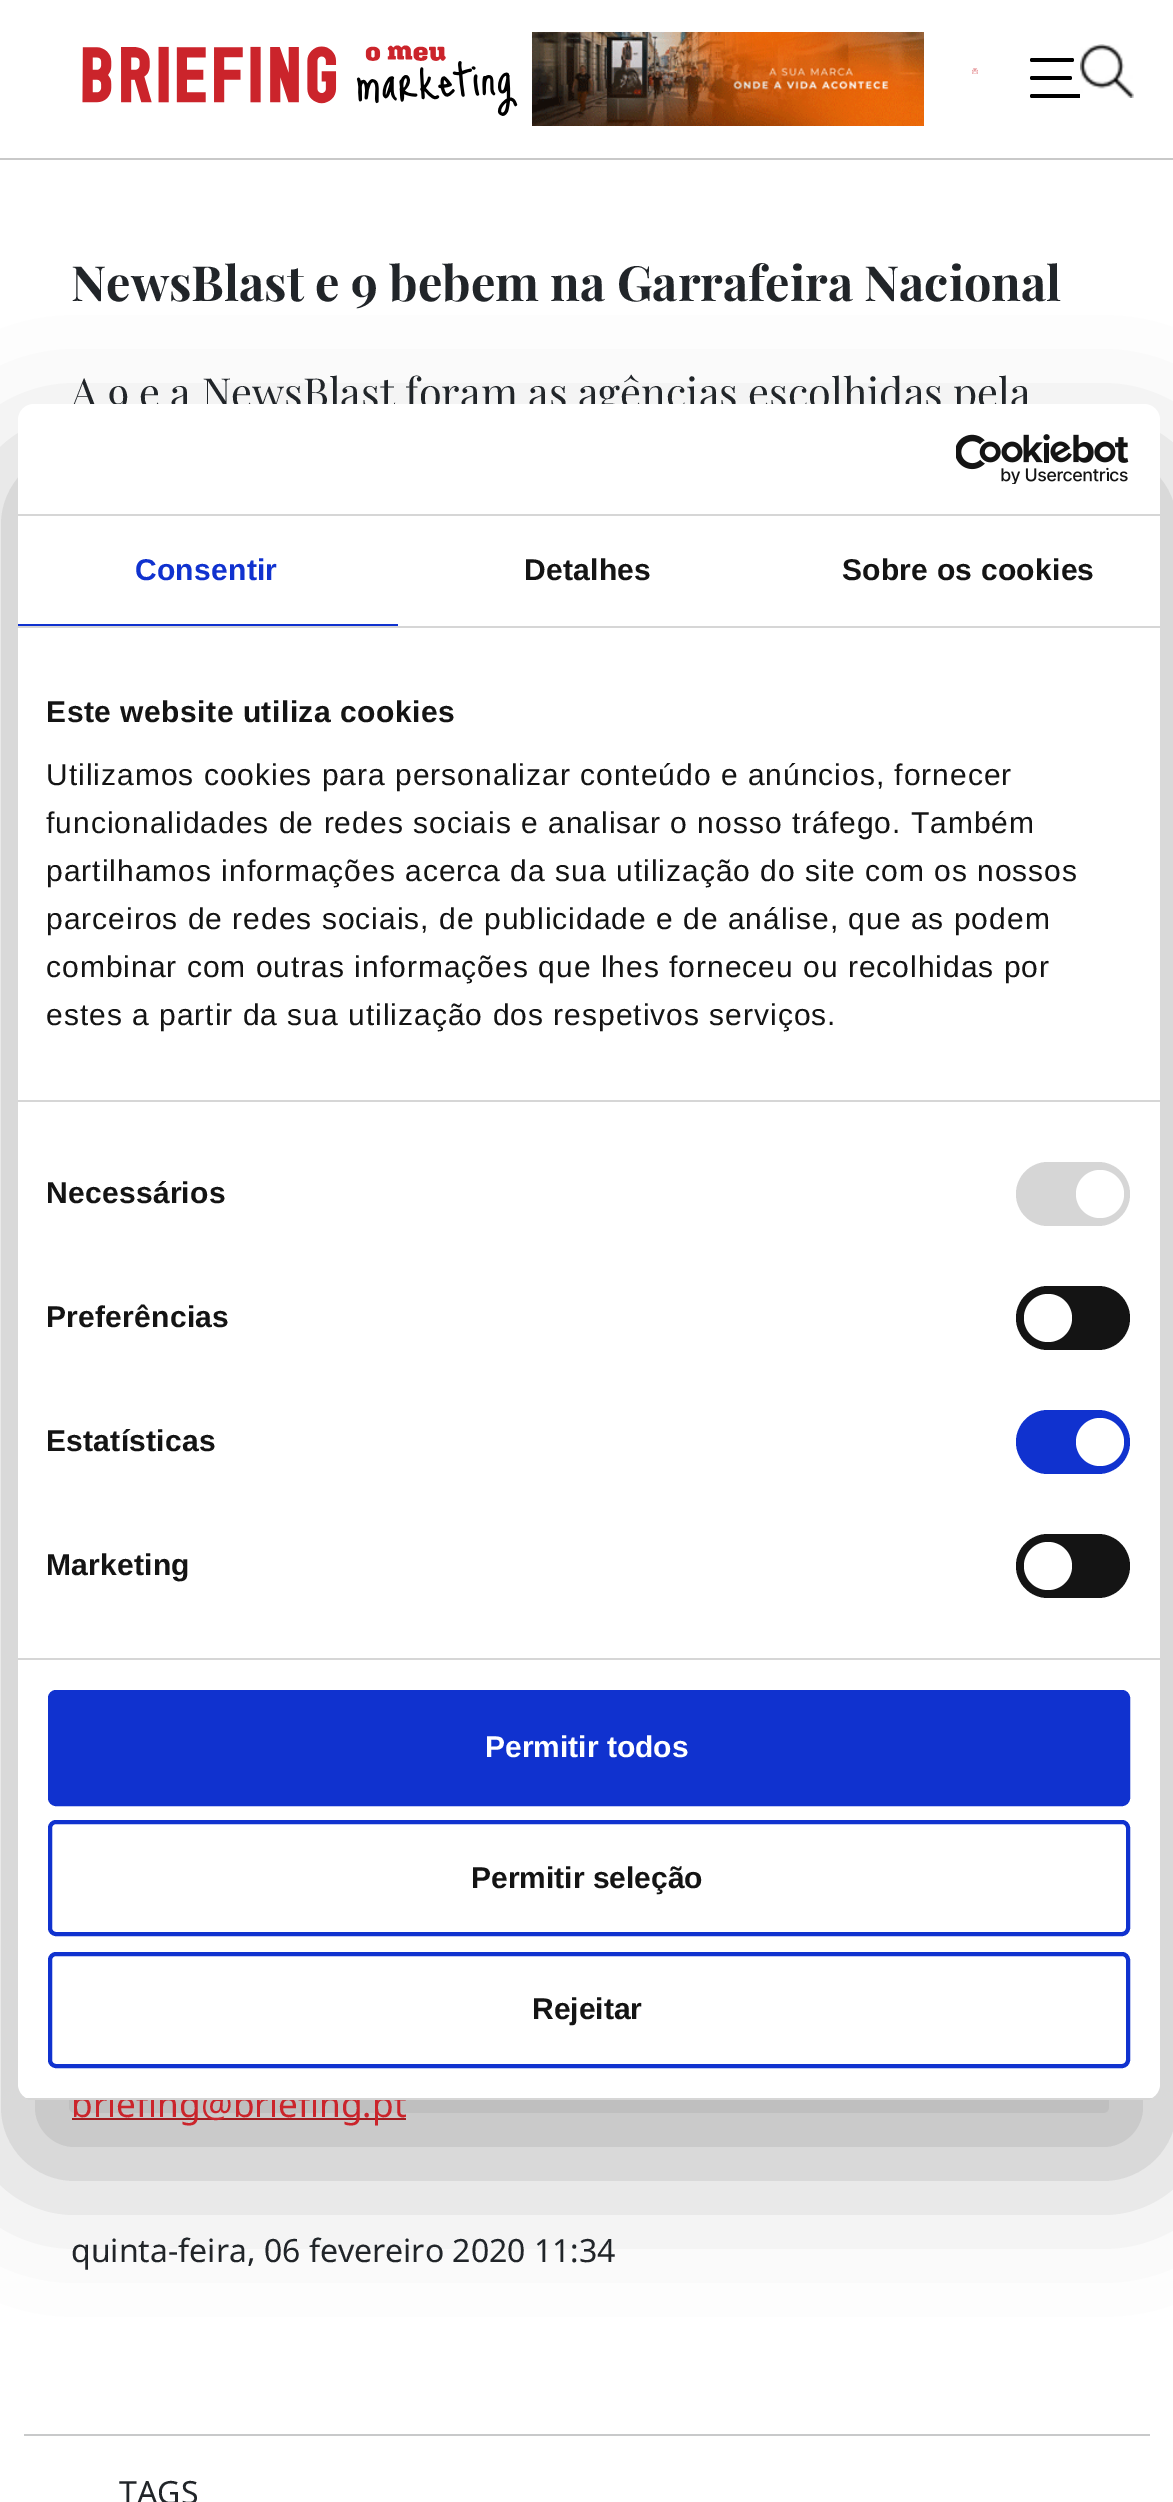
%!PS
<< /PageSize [1173 2502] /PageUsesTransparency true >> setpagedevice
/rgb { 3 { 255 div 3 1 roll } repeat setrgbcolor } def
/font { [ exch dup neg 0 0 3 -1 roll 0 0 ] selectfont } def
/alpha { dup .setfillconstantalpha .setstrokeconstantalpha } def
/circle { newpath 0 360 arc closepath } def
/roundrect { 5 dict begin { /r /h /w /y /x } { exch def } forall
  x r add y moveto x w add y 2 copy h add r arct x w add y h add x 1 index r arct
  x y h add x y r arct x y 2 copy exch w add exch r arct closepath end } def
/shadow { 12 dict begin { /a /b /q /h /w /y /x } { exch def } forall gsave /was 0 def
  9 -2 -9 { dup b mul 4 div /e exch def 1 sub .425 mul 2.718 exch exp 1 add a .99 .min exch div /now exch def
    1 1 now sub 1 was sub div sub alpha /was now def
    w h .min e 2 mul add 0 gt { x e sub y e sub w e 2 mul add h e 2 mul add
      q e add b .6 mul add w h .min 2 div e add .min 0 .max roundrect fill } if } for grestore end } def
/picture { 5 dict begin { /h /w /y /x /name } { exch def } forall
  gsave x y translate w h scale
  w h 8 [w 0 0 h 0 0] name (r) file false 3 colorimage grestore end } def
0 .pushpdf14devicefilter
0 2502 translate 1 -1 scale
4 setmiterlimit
255 255 255 rgb
0 0 1173 2502 rectfill
201 201 201 rgb
0 158 1173 2 rectfill
(img/1.rgb) 82 45 436 71 picture
(img/2.rgb) 532 32 392 94 picture
(img/3.rgb) 972 68 6 6 picture
0 0 0 rgb
1030 58 44 4 2 roundrect fill
1030 94 70 4 2 roundrect fill
(img/4.rgb) 1080 44 54 54 picture
1030 76 42 4 2 roundrect fill
203 36 43 rgb
72 2118 334 2 rectfill
200 201 202 rgb
24 2434 1126 2 rectfill
0 0 0 rgb
18 468 1142 1696 16 68 0.3 shadow
/PlayfairDisplay-Bold 48.6 font
33 37 41 rgb
71 301 moveto (NewsBlast e 9 bebem na Garrafeira Nacional) show
/PlayfairDisplay-Regular 41.6 font
71 408 moveto (A 9 e a NewsBlast foram as agências escolhidas pela) show
/NotoSans-Regular 35.25 font
203 36 43 rgb
71 2117 moveto (briefing@briefing.pt) show
/NotoSans-Regular 32 font
33 37 41 rgb
71 2262 moveto (quinta-feira, 06 fevereiro 2020 11:34) show
119 2504 moveto (TAGS) show
255 255 255 rgb
18 404 1142 1696 16 roundrect fill
214 214 214 rgb
18 514 1142 2 rectfill
(img/5.rgb) 956 434 173 50 picture
18 626 1142 2 rectfill
16 50 207 rgb
18 624 380 2 rectfill
/LiberationSans-Bold 30 font
135 580 moveto 0.25 0 (Consentir) ashow
20 20 20 rgb
524 580 moveto 0.25 0 (Detalhes) ashow
842 580 moveto 0.25 0 (Sobre os cookies) ashow
214 214 214 rgb
18 1100 1142 2 rectfill
20 20 20 rgb
46 722 moveto 0.5 0 (Este website utiliza cookies) ashow
/LiberationSans-Regular 30 font
46 785 moveto 1 0 (Utilizamos cookies para personalizar conteúdo e anúncios, fornecer) ashow
46 833 moveto 1 0 (funcionalidades de redes sociais e analisar o nosso tráfego. Também) ashow
46 881 moveto 1 0 (partilhamos informações acerca da sua utilização do site com os nossos) ashow
46 929 moveto 1 0 (parceiros de redes sociais, de publicidade e de análise, que as podem) ashow
46 977 moveto 1 0 (combinar com outras informações que lhes forneceu ou recolhidas por) ashow
46 1025 moveto 1 0 (estes a partir da sua utilização dos respetivos serviços.) ashow
214 214 214 rgb
18 1658 1142 2 rectfill
/LiberationSans-Bold 30 font
20 20 20 rgb
46 1203 moveto 0.25 0 (Necessários) ashow
214 214 214 rgb
1016 1162 114 64 32 roundrect fill
255 255 255 rgb
1100 1194 24 circle fill
20 20 20 rgb
46 1327 moveto 0.25 0 (Preferências) ashow
1016 1286 114 64 32 roundrect fill
255 255 255 rgb
1048 1318 24 circle fill
20 20 20 rgb
46 1451 moveto 0.25 0 (Estatísticas) ashow
16 50 207 rgb
1016 1410 114 64 32 roundrect fill
255 255 255 rgb
1100 1442 24 circle fill
20 20 20 rgb
46 1575 moveto 0.25 0 (Marketing) ashow
1016 1534 114 64 32 roundrect fill
255 255 255 rgb
1048 1566 24 circle fill
gsave
18 404 1142 1696 16 roundrect clip newpath
214 214 214 rgb
18 2098 1142 2 rectfill
grestore
16 50 207 rgb
50 1692 1078 112 6 roundrect gsave fill grestore
4 setlinewidth
stroke
255 255 255 rgb
485 1757 moveto (Permitir todos) show
16 50 207 rgb
50 1822 1078 112 6 roundrect stroke
20 20 20 rgb
471 1888 moveto (Permitir seleção) show
16 50 207 rgb
50 1954 1078 112 6 roundrect stroke
20 20 20 rgb
532 2019 moveto (Rejeitar) show
.poppdf14devicefilter showpage
